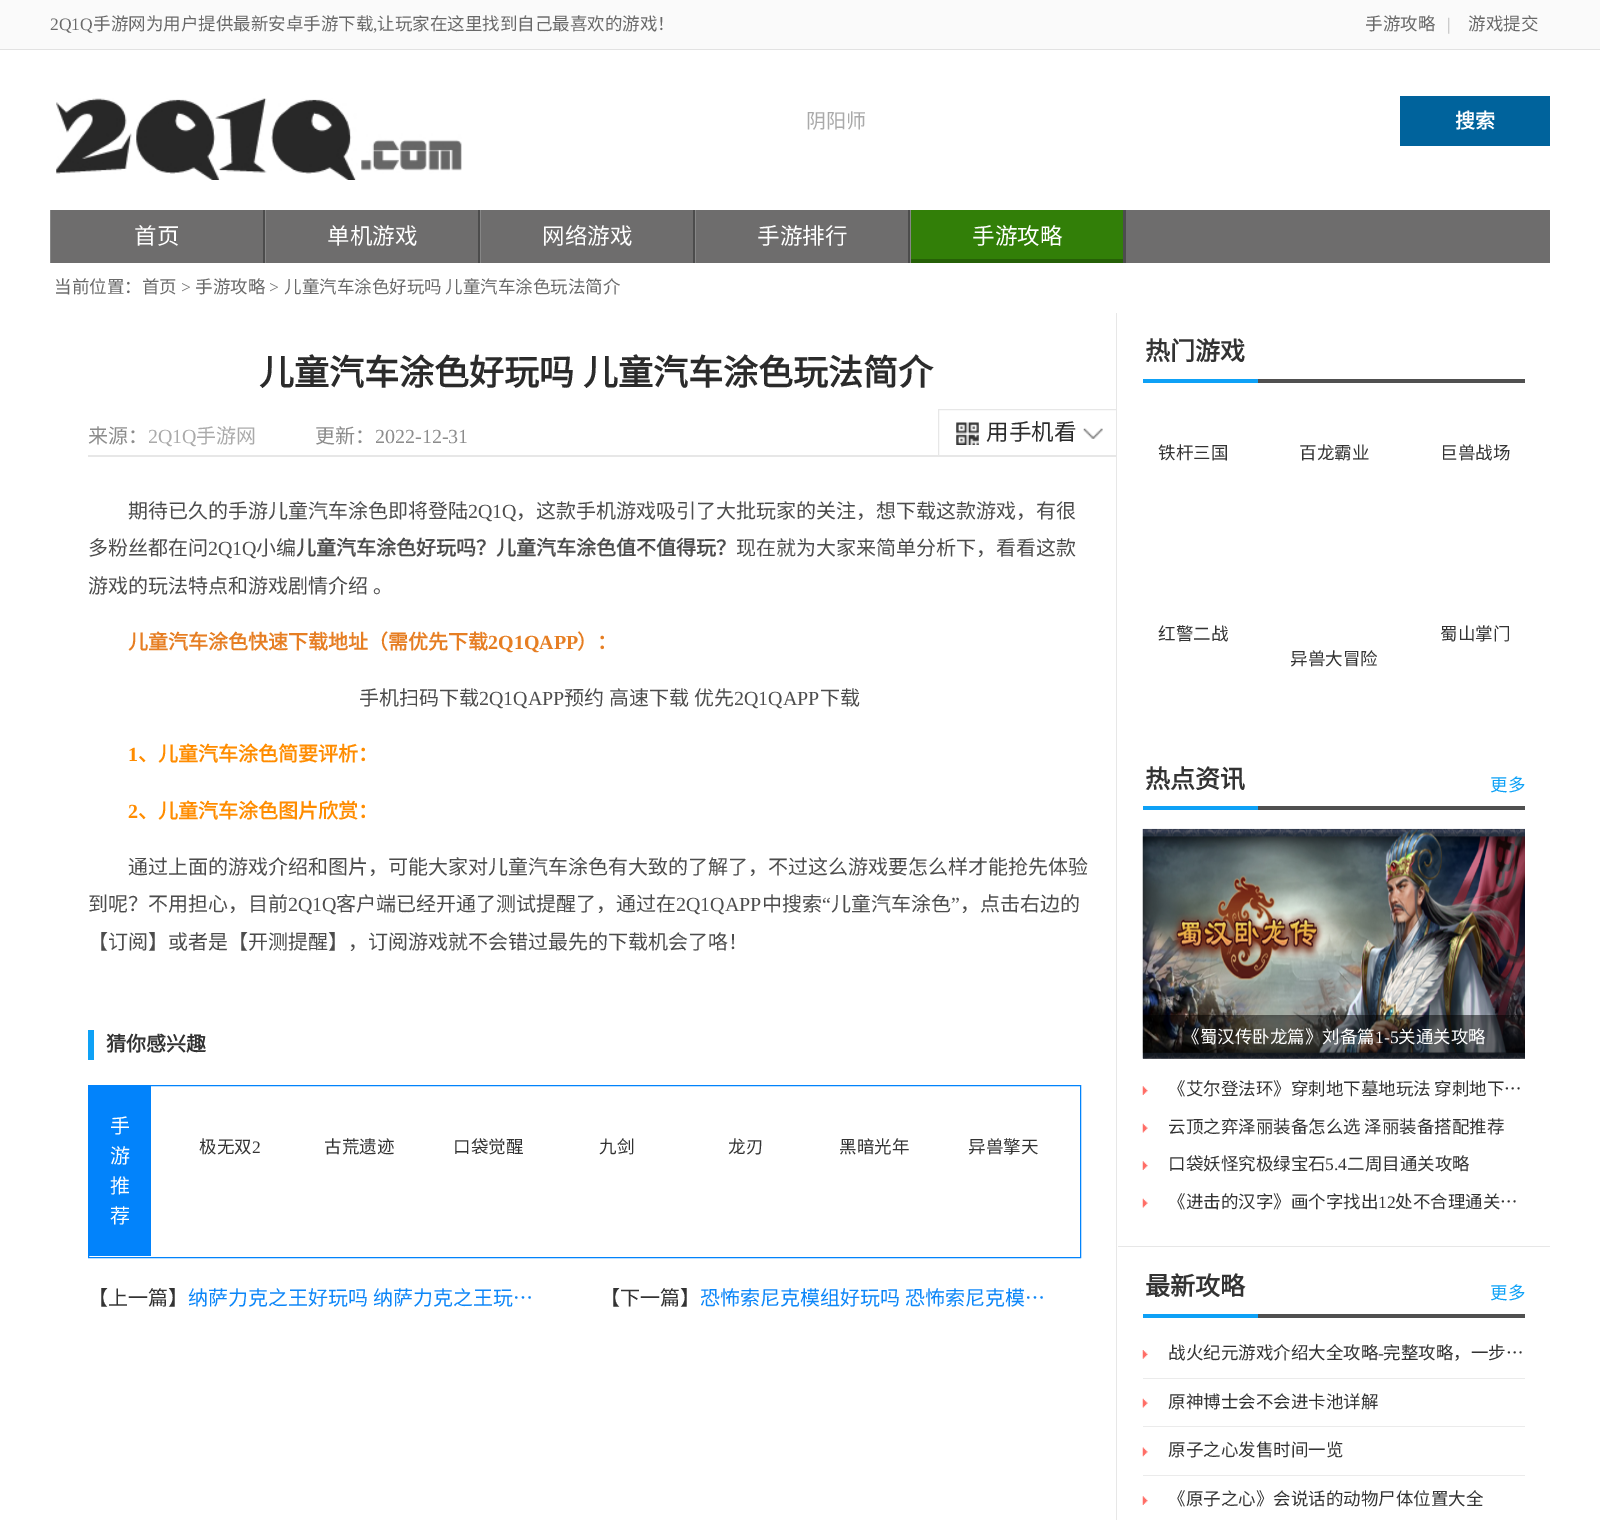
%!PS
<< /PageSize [1600 1520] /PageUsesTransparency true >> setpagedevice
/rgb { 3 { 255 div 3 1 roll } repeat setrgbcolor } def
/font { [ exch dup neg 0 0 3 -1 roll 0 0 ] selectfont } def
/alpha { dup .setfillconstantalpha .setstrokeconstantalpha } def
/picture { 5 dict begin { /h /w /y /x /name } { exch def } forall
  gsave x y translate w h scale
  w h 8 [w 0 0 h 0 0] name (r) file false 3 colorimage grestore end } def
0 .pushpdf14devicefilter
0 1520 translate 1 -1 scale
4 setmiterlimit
255 255 255 rgb
0 0 1600 1520 rectfill
250 250 250 rgb
0 0 1600 49 rectfill
226 226 226 rgb
0 49 1600 1 rectfill
(img/1.rgb) 56 98 406 82 picture
[
  [1400 96 150 50 0 99 156]
  [51 210 1499 53 110 109 109]
  [263 210 2 53 76 76 76]
  [50 210 1 53 134 134 134]
  [478 210 2 53 76 76 76]
  [265 210 1 53 134 134 134]
  [693 210 2 53 76 76 76]
  [480 210 1 53 134 134 134]
  [908 210 2 53 76 76 76]
  [695 210 1 53 134 134 134]
  [1123 210 3 53 76 76 76]
  [910 210 1 53 134 134 134]
  [911 210 212 49 50 127 8]
  [911 259 212 4 38 96 7]
  [88 455 850 1 231 231 231]
  [1116 313 1 1207 231 231 231]
] { aload pop rgb rectfill } forall
gsave
50 313 1066 1051 rectclip
938.5 409.5 179 46 rectstroke
grestore
(img/2.rgb) 956 422 23 23 picture
(img/3.rgb) 1083 428 20 11 picture
88 456 1028 1 rectfill
14 161 246 rgb
88 1030 6 30 rectfill
2 131 251 rgb
88.5 1085.5 992 172 rectstroke
[
  [89 1086 62 170 2 131 251]
  [1258 379 267 4 80 80 80]
  [1143 379 115 4 14 161 246]
  [1118 1246 432 1 231 231 231]
  [1258 806 267 4 80 80 80]
  [1143 806 115 4 14 161 246]
] { aload pop rgb rectfill } forall
(img/4.rgb) 1142 828 383 231 picture
0.5 alpha
0 0 0 rgb
1143 1015 382 44 rectfill
1 alpha
(img/5.rgb) 1142 1086 6 9 picture
(img/6.rgb) 1142 1123 6 10 picture
(img/5.rgb) 1142 1161 6 9 picture
(img/6.rgb) 1142 1198 6 10 picture
80 80 80 rgb
1258 1314 267 4 rectfill
14 161 246 rgb
1143 1314 115 4 rectfill
(img/7.rgb) 1142 1350 6 9 picture
235 235 235 rgb
1143 1378 382 1 rectfill
(img/6.rgb) 1142 1398 6 10 picture
1143 1426 382 1 rectfill
(img/8.rgb) 1142 1447 6 10 picture
1143 1475 382 1 rectfill
(img/5.rgb) 1142 1496 6 9 picture
/LiberationSerif-Regular 17.5 font
105 105 105 rgb
50 30 moveto (2Q1Q) show
/NotoSansCJKSC-Regular 17.5 font
93 30 moveto (手游网为用户提供最新安卓手游下载) show
/LiberationSerif-Regular 17.5 font
373 30 moveto (,) show
/NotoSansCJKSC-Regular 17.5 font
377 30 moveto (让玩家在这里找到自己最喜欢的游戏！) show
1365 30 moveto (手游攻略) show
/LiberationSerif-Regular 17.5 font
187 187 187 rgb
1447 30 moveto (|) show
/NotoSansCJKSC-Regular 17.5 font
105 105 105 rgb
1468 30 moveto (游戏提交) show
/NotoSansCJKSC-Regular 20 font
170 170 170 rgb
806 128 moveto (阴阳师) show
/NotoSansCJKSC-Bold 20 font
255 255 255 rgb
1455 128 moveto (搜索) show
/NotoSansCJKSC-Regular 22.5 font
[
  [(首页) 134 244]
  [(单机游戏) 327 244]
  [(网络游戏) 542 244]
  [(手游排行) 757 244]
  [(手游攻略) 972 244]
] { aload pop moveto show } forall
/NotoSansCJKSC-Regular 17.5 font
105 105 105 rgb
54 293 moveto (当前位置：首页) show
/LiberationSerif-Regular 17.5 font
181 293 moveto (>) show
/NotoSansCJKSC-Regular 17.5 font
195 293 moveto (手游攻略) show
/LiberationSerif-Regular 17.5 font
269 293 moveto (>) show
/NotoSansCJKSC-Regular 17.5 font
284 293 moveto (儿童汽车涂色好玩吗 儿童汽车涂色玩法简介) show
/NotoSansCJKSC-Bold 35 font
43 43 43 rgb
259 385 moveto 1 0 32 (儿童汽车涂色好玩吗 儿童汽车涂色玩法简介) widthshow
/NotoSansCJKSC-Regular 20 font
140 140 140 rgb
88 443 moveto (来源：) show
/LiberationSerif-Regular 20 font
170 170 170 rgb
148 443 moveto (2Q1Q) show
/NotoSansCJKSC-Regular 20 font
196 443 moveto (手游网) show
140 140 140 rgb
315 443 moveto (更新：) show
/LiberationSerif-Regular 20 font
375 443 moveto (2022-12-31) show
/NotoSansCJKSC-Regular 22.5 font
43 43 43 rgb
986 440 moveto (用手机看) show
/NotoSansCJKSC-Regular 20 font
76 76 76 rgb
128 518 moveto (期待已久的手游儿童汽车涂色即将登陆) show
/LiberationSerif-Regular 20 font
468 518 moveto (2Q1Q) show
/NotoSansCJKSC-Regular 20 font
516 518 moveto (，这款手机游戏吸引了大批玩家的关注，想下载这款游戏，有很) show
88 555 moveto (多粉丝都在问) show
/LiberationSerif-Regular 20 font
208 555 moveto (2Q1Q) show
/NotoSansCJKSC-Regular 20 font
256 555 moveto (小编) show
/NotoSansCJKSC-Bold 20 font
296 555 moveto (儿童汽车涂色好玩吗？儿童汽车涂色值不值得玩？) show
/NotoSansCJKSC-Regular 20 font
736 555 moveto (现在就为大家来简单分析下，看看这款) show
88 593 moveto 1 0 32 (游戏的玩法特点和游戏剧情介绍 。) widthshow
/NotoSansCJKSC-Bold 20 font
230 126 35 rgb
128 649 moveto (儿童汽车涂色快速下载地址（需优先下载) show
/LiberationSerif-Bold 20 font
488 649 moveto (2Q1QAPP) show
/NotoSansCJKSC-Bold 20 font
577 649 moveto (）：) show
/NotoSansCJKSC-Regular 20 font
76 76 76 rgb
359 705 moveto (手机扫码下载) show
/LiberationSerif-Regular 20 font
479 705 moveto (2Q1QAPP) show
/NotoSansCJKSC-Regular 20 font
[
  [(预约) 564 705]
  [(高速下载) 609 705]
  [(优先) 694 705]
] { aload pop moveto show } forall
/LiberationSerif-Regular 20 font
734 705 moveto (2Q1QAPP) show
/NotoSansCJKSC-Regular 20 font
820 705 moveto (下载) show
/LiberationSerif-Bold 20 font
255 140 0 rgb
128 761 moveto (1) show
/NotoSansCJKSC-Bold 20 font
138 761 moveto (、儿童汽车涂色简要评析：) show
/LiberationSerif-Bold 20 font
128 818 moveto (2) show
/NotoSansCJKSC-Bold 20 font
138 818 moveto (、儿童汽车涂色图片欣赏：) show
/NotoSansCJKSC-Regular 20 font
76 76 76 rgb
128 874 moveto (通过上面的游戏介绍和图片，可能大家对儿童汽车涂色有大致的了解了，不过这么游戏要怎么样才能抢先体验) show
88 911 moveto (到呢？不用担心，目前) show
/LiberationSerif-Regular 20 font
288 911 moveto (2Q1Q) show
/NotoSansCJKSC-Regular 20 font
336 911 moveto (客户端已经开通了测试提醒了，通过在) show
/LiberationSerif-Regular 20 font
676 911 moveto (2Q1QAPP) show
/NotoSansCJKSC-Regular 20 font
762 911 moveto (中搜索) show
/LiberationSerif-Regular 20 font
822 911 moveto (“) show
/NotoSansCJKSC-Regular 20 font
831 911 moveto (儿童汽车涂色) show
/LiberationSerif-Regular 20 font
951 911 moveto (”) show
/NotoSansCJKSC-Regular 20 font
960 911 moveto (，点击右边的) show
88 949 moveto (【订阅】或者是【开测提醒】，订阅游戏就不会错过最先的下载机会了咯！) show
/NotoSansCJKSC-Bold 20 font
51 51 51 rgb
106 1051 moveto (猜你感兴趣) show
/NotoSansCJKSC-Regular 20 font
255 255 255 rgb
[
  [(手) 110 1133]
  [(游) 110 1163]
  [(推) 110 1193]
  [(荐) 110 1223]
] { aload pop moveto show } forall
/NotoSansCJKSC-Regular 17.5 font
51 51 51 rgb
199 1153 moveto (极无双) show
/LiberationSerif-Regular 17.5 font
252 1153 moveto (2) show
/NotoSansCJKSC-Regular 17.5 font
[
  [(古荒遗迹) 324 1153]
  [(口袋觉醒) 453 1153]
  [(九剑) 599 1153]
  [(龙刃) 728 1153]
  [(黑暗光年) 839 1153]
  [(异兽擎天) 968 1153]
] { aload pop moveto show } forall
/NotoSansCJKSC-Regular 20 font
88 1305 moveto (【上一篇】) show
12 134 248 rgb
188 1305 moveto 1 0 32 (纳萨力克之王好玩吗 纳萨力克之王玩…) widthshow
51 51 51 rgb
600 1305 moveto (【下一篇】) show
12 134 248 rgb
700 1305 moveto 1 0 32 (恐怖索尼克模组好玩吗 恐怖索尼克模…) widthshow
/NotoSansCJKSC-Bold 25 font
51 51 51 rgb
1145 360 moveto (热门游戏) show
/NotoSansCJKSC-Regular 17.5 font
[
  [(铁杆三国) 1158 459]
  [(百龙霸业) 1299 459]
  [(巨兽战场) 1440 459]
  [(红警二战) 1158 640]
  [(蜀山掌门) 1440 640]
  [(异兽大冒险) 1290 665]
] { aload pop moveto show } forall
/NotoSansCJKSC-Bold 25 font
1145 788 moveto (热点资讯) show
/NotoSansCJKSC-Regular 17.5 font
14 161 246 rgb
1490 791 moveto (更多) show
255 255 255 rgb
1182 1043 moveto (《蜀汉传卧龙篇》刘备篇) show
/LiberationSerif-Regular 17.5 font
1375 1043 moveto (1-5) show
/NotoSansCJKSC-Regular 17.5 font
1398 1043 moveto (关通关攻略) show
51 51 51 rgb
[
  [(《艾尔登法环》穿刺地下墓地玩法 穿刺地下…) 1168 1095]
  [(云顶之弈泽丽装备怎么选 泽丽装备搭配推荐) 1168 1133]
  [(口袋妖怪究极绿宝石) 1168 1170]
] { aload pop moveto show } forall
/LiberationSerif-Regular 17.5 font
1325 1170 moveto (5.4) show
/NotoSansCJKSC-Regular 17.5 font
1347 1170 moveto (二周目通关攻略) show
1168 1208 moveto (《进击的汉字》画个字找出) show
/LiberationSerif-Regular 17.5 font
1378 1208 moveto (12) show
/NotoSansCJKSC-Regular 17.5 font
1395 1208 moveto (处不合理通关…) show
/NotoSansCJKSC-Bold 25 font
1145 1295 moveto (最新攻略) show
/NotoSansCJKSC-Regular 17.5 font
14 161 246 rgb
1490 1299 moveto (更多) show
51 51 51 rgb
1168 1359 moveto (战火纪元游戏介绍大全攻略) show
/LiberationSerif-Regular 17.5 font
1378 1359 moveto (-) show
/NotoSansCJKSC-Regular 17.5 font
[
  [(完整攻略，一步…) 1383 1359]
  [(原神博士会不会进卡池详解) 1168 1408]
  [(原子之心发售时间一览) 1168 1456]
  [(《原子之心》会说话的动物尸体位置大全) 1168 1505]
] { aload pop moveto show } forall
.poppdf14devicefilter showpage
